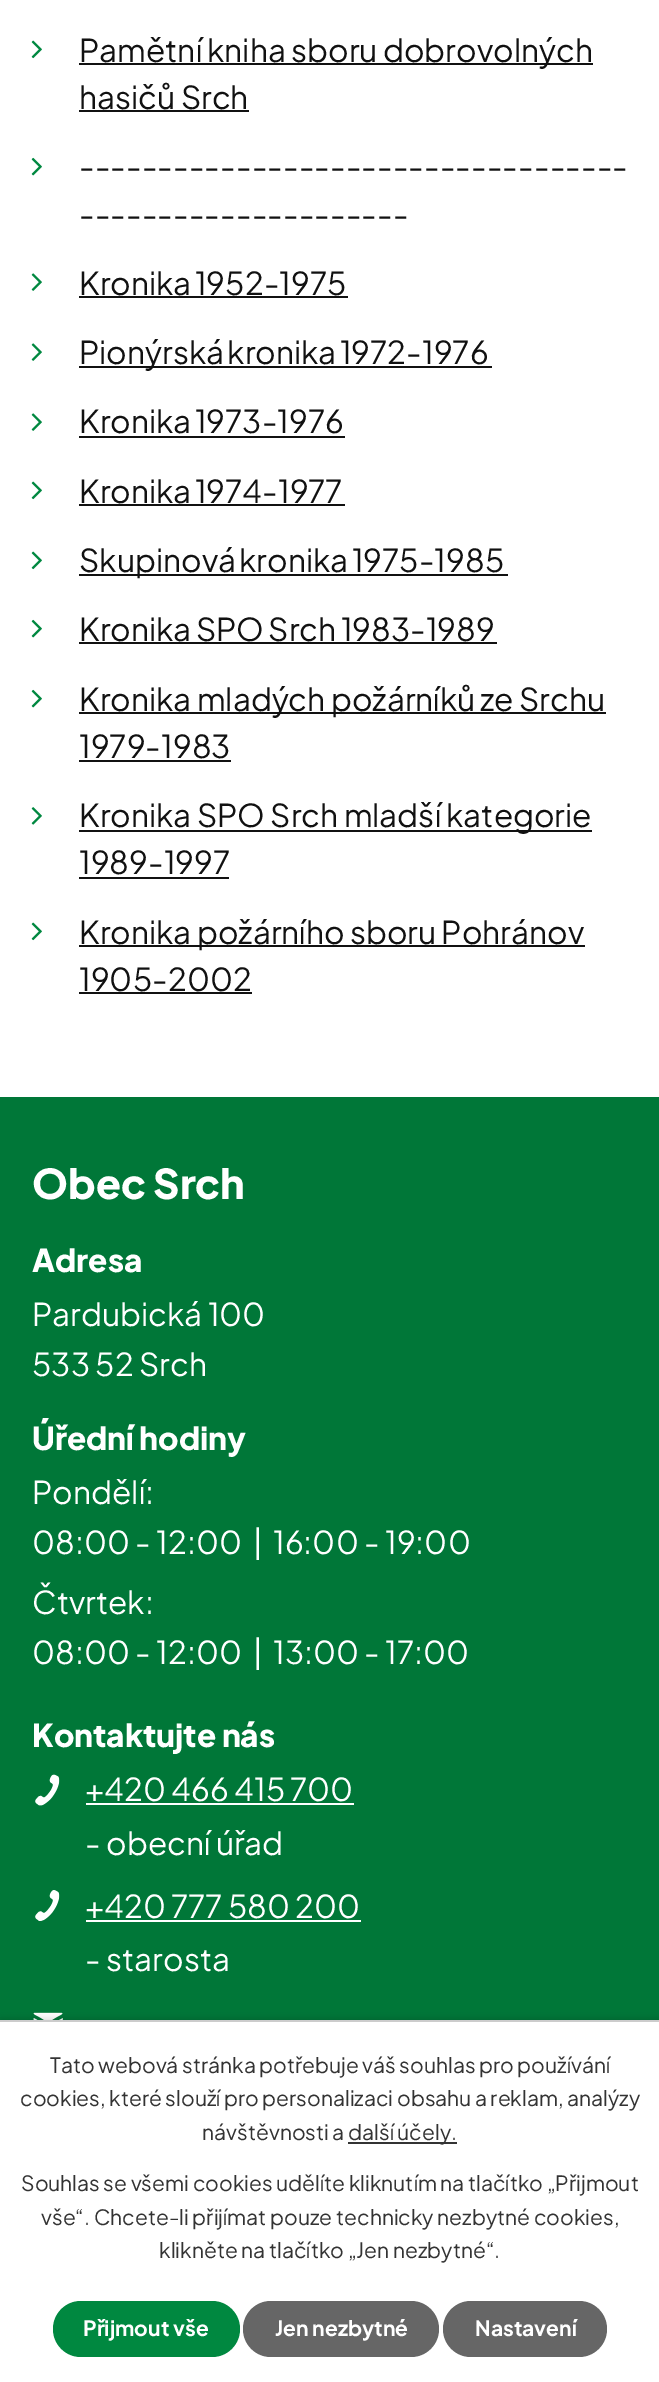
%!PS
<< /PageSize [659 2382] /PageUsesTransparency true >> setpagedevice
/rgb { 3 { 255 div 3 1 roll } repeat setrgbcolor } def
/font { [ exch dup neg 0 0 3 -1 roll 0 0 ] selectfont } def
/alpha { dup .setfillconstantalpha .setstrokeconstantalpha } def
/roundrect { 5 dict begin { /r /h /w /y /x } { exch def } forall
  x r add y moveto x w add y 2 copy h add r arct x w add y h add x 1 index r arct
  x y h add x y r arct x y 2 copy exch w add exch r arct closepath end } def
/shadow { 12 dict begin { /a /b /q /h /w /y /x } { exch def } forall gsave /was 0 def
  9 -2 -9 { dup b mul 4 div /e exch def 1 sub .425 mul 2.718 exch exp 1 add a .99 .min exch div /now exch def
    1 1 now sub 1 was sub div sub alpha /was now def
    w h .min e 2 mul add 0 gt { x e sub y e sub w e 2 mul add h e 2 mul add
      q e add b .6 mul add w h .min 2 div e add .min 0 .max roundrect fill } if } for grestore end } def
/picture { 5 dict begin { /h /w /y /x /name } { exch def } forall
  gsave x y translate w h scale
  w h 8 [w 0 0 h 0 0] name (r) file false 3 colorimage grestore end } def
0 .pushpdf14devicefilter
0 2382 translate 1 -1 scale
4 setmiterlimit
255 255 255 rgb
0 0 659 2382 rectfill
(img/1.rgb) 31 40 11 19 picture
17 17 17 rgb
79 63 514 2 rectfill
79 110 170 2 rectfill
(img/2.rgb) 31 157 11 19 picture
(img/3.rgb) 31 273 11 18 picture
79 296 269 2 rectfill
(img/3.rgb) 31 343 11 18 picture
79 366 413 2 rectfill
(img/3.rgb) 31 413 11 18 picture
79 436 266 2 rectfill
(img/4.rgb) 31 481 11 19 picture
79 504 266 2 rectfill
(img/1.rgb) 31 551 11 19 picture
79 574 429 2 rectfill
(img/2.rgb) 31 619 11 19 picture
79 642 418 2 rectfill
(img/2.rgb) 31 689 11 19 picture
79 712 527 2 rectfill
79 760 152 2 rectfill
(img/5.rgb) 31 807 11 18 picture
79 830 513 2 rectfill
79 877 150 2 rectfill
(img/1.rgb) 31 922 11 19 picture
[
  [79 945 506 2 17 17 17]
  [79 992 173 2 17 17 17]
  [0 1097 659 923 0 119 56]
] { aload pop rgb rectfill } forall
(img/6.rgb) 35 1774 25 32 picture
255 255 255 rgb
86 1803 268 2 rectfill
(img/7.rgb) 35 1890 25 31 picture
86 1920 275 2 rectfill
(img/8.rgb) 33 2012 30 8 picture
0 0 0 rgb
0 2020 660 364 0 4.5 0.2 shadow
[
  [0 2022 659 360 255 255 255]
  [0 2020 659 2 204 204 204]
  [348 2142 109 2 51 51 51]
] { aload pop rgb rectfill } forall
0 136 64 rgb
53 2301 187 56 28 roundrect fill
102 102 102 rgb
243 2301 196 56 28 roundrect fill
443 2301 164 56 28 roundrect fill
/PlusJakartaSans-Regular 31.5 font
17 17 17 rgb
[
  [(Pamětní kniha sboru dobrovolných) 79 62]
  [(hasičů Srch) 79 109]
  [(-----------------------------------) 79 178]
  [(---------------------) 79 226]
] { aload pop moveto show } forall
79 295 moveto -2 0 32 (Kronika 1952-1975) widthshow
79 364 moveto -2 0 32 (Pionýrská kronika 1972-1976) widthshow
79 433 moveto -2 0 32 (Kronika 1973-1976) widthshow
79 503 moveto -2 0 32 (Kronika 1974-1977) widthshow
79 572 moveto -2 0 32 (Skupinová kronika 1975-1985) widthshow
79 641 moveto -1 0 32 (Kronika SPO Srch 1983-1989) widthshow
[
  [(Kronika mladých požárníků ze Srchu) 79 711]
  [(1979-1983) 79 758]
  [(Kronika SPO Srch mladší kategorie) 79 827]
  [(1989-1997) 79 874]
  [(Kronika požárního sboru Pohránov) 79 944]
  [(1905-2002) 79 991]
] { aload pop moveto show } forall
/PlusJakartaSans-ExtraBold 41 font
255 255 255 rgb
32 1199 moveto (Obec Srch) show
/PlusJakartaSans-ExtraBold 31.5 font
32 1272 moveto (Adresa) show
/PlusJakartaSans-Regular 31.5 font
32 1326 moveto (Pardubická 100) show
32 1376 moveto (533 52 Srch) show
/PlusJakartaSans-ExtraBold 31.5 font
32 1450 moveto (Úřední hodiny) show
/PlusJakartaSans-Regular 31.5 font
[
  [(Pondělí:) 32 1504]
  [(08:00 - 12:00) 32 1554]
  [(|) 253 1554]
  [(16:00 - 19:00) 273 1554]
  [(Čtvrtek:) 32 1614]
  [(08:00 - 12:00) 32 1664]
  [(|) 253 1664]
  [(13:00 - 17:00) 273 1664]
] { aload pop moveto show } forall
/PlusJakartaSans-ExtraBold 31.5 font
32 1747 moveto (Kontaktujte nás) show
/PlusJakartaSans-Regular 31.5 font
[
  [(+420 466 415 700) 85 1801]
  [(- obecní úřad) 85 1855]
  [(+420 777 580 200) 85 1918]
  [(- starosta) 85 1971]
] { aload pop moveto show } forall
/PlusJakartaSans-Regular 21 font
51 51 51 rgb
[
  [(Tato webová stránka potřebuje váš souhlas pro používání) 50 2073]
  [(cookies, které slouží pro personalizaci obsahu a reklam, analýzy) 20 2106]
  [(návštěvnosti a) 202 2140]
  [(další účely.) 348 2140]
  [(Souhlas se všemi cookies udělíte kliknutím na tlačítko „Přijmout) 21 2191]
  [(vše“. Chcete-li přijímat pouze technicky nezbytné cookies,) 41 2225]
  [(klikněte na tlačítko „Jen nezbytné“.) 159 2258]
] { aload pop moveto show } forall
/PlusJakartaSans-Bold 21 font
255 255 255 rgb
[
  [(Přijmout vše) 83 2336]
  [(Jen nezbytné) 275 2336]
  [(Nastavení) 475 2336]
] { aload pop moveto show } forall
.poppdf14devicefilter showpage
